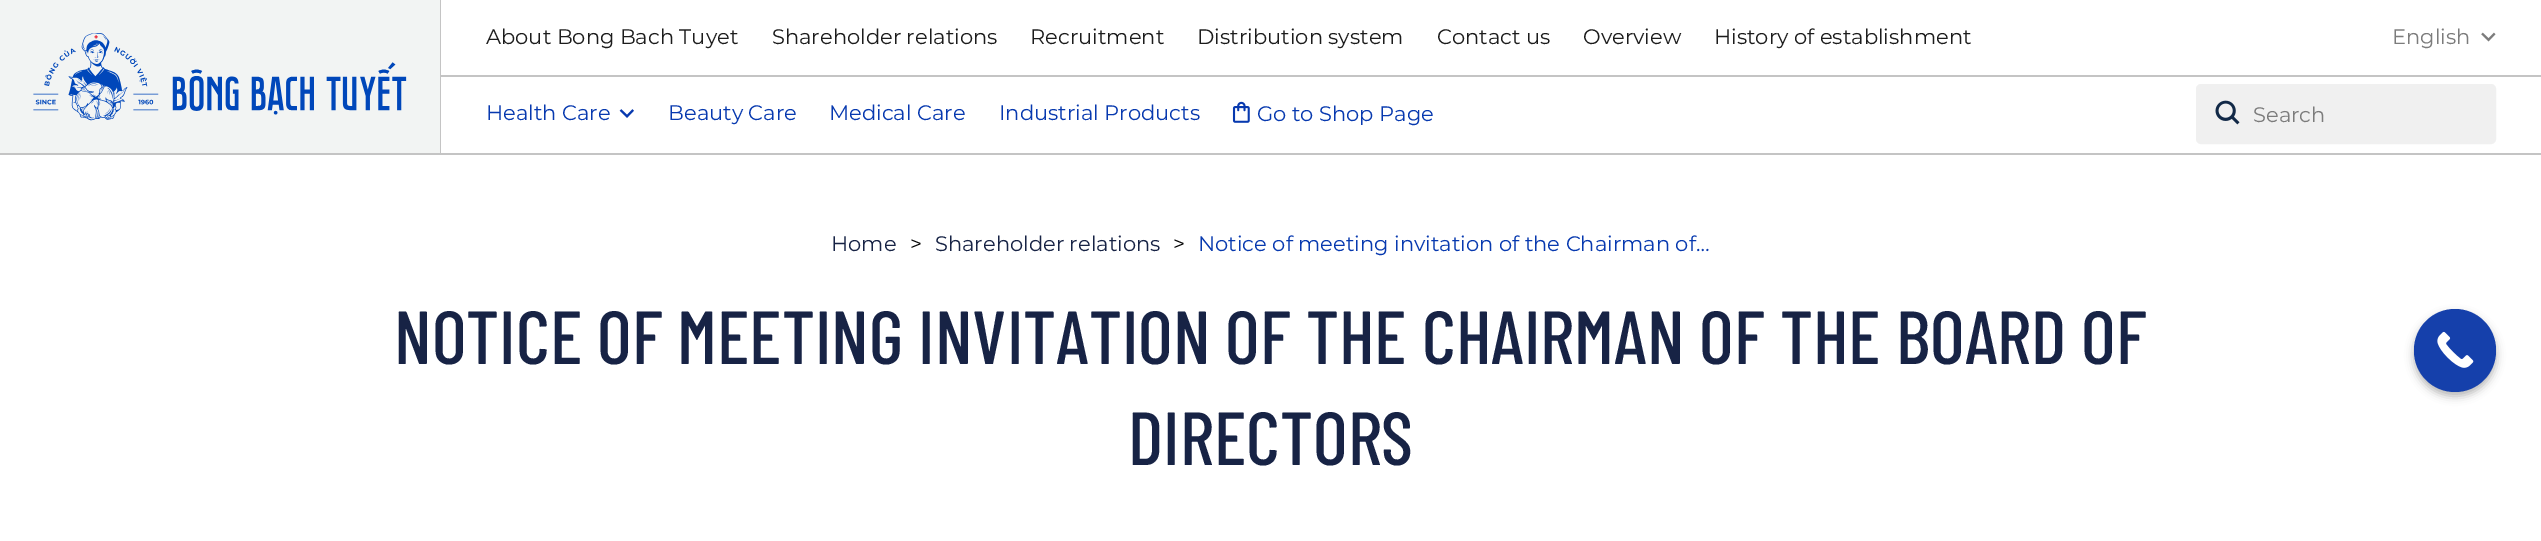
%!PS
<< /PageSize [2541 541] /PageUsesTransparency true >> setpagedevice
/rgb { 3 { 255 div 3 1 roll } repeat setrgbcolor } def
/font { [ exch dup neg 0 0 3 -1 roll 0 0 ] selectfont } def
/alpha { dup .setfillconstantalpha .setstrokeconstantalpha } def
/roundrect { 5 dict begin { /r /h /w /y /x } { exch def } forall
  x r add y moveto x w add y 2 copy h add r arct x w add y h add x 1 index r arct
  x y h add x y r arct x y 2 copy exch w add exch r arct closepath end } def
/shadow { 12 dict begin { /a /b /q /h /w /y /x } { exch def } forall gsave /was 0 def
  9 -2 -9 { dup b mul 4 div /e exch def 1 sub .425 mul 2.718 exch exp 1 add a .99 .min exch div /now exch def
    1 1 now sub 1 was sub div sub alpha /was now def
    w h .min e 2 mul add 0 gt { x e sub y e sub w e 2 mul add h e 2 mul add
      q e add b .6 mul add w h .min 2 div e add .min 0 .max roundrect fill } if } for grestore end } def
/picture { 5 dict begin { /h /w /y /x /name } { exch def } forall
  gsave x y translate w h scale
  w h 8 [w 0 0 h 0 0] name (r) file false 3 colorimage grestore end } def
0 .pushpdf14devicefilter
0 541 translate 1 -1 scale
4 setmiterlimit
255 255 255 rgb
0 0 2541 541 rectfill
[
  [0 153 2541 2 196 196 196]
  [440 0 1 153 196 196 196]
  [0 0 440 153 242 244 243]
] { aload pop rgb rectfill } forall
(img/1.rgb) 33 33 374 88 picture
196 196 196 rgb
441 75 2100 2 rectfill
(img/2.rgb) 2481 32 15 10 picture
(img/3.rgb) 619 109 15 9 picture
(img/4.rgb) 1232 101 18 22 picture
240 240 240 rgb
2197 85 298 58 4 roundrect gsave fill grestore
2 setlinewidth
stroke
(img/5.rgb) 2215 100 25 25 picture
0 0 0 rgb
2414 314 82 82 41 4.5 0.3 shadow
21 64 171 rgb
2414 309 82 83 41 roundrect fill
(img/6.rgb) 2437 331 37 37 picture
/Montserrat-Regular 21 font
28 28 28 rgb
[
  [(About Bong Bach Tuyet) 486 44]
  [(Shareholder relations) 772 44]
  [(Recruitment) 1030 44]
  [(Distribution system) 1197 44]
  [(Contact us) 1437 44]
  [(Overview) 1583 44]
  [(History of establishment) 1714 44]
] { aload pop moveto show } forall
124 124 124 rgb
2392 44 moveto (English) show
7 57 175 rgb
[
  [(Health Care) 486 120]
  [(Beauty Care) 668 120]
  [(Medical Care) 829 120]
  [(Industrial Products) 999 120]
  [(Go to Shop Page) 1257 121]
] { aload pop moveto show } forall
124 124 124 rgb
2253 122 moveto (Search) show
23 35 69 rgb
831 251 moveto (Home) show
0 0 0 rgb
910 251 moveto (>) show
23 35 69 rgb
935 251 moveto (Shareholder relations) show
0 0 0 rgb
1173 251 moveto (>) show
7 57 175 rgb
1198 251 moveto (Notice of meeting invitation of the Chairman of…) show
/BarlowCondensed-Medium 75 font
23 35 69 rgb
394 364 moveto (NOTICE OF MEETING INVITATION OF THE CHAIRMAN OF THE BOARD OF) show
1128 465 moveto (DIRECTORS) show
.poppdf14devicefilter showpage
